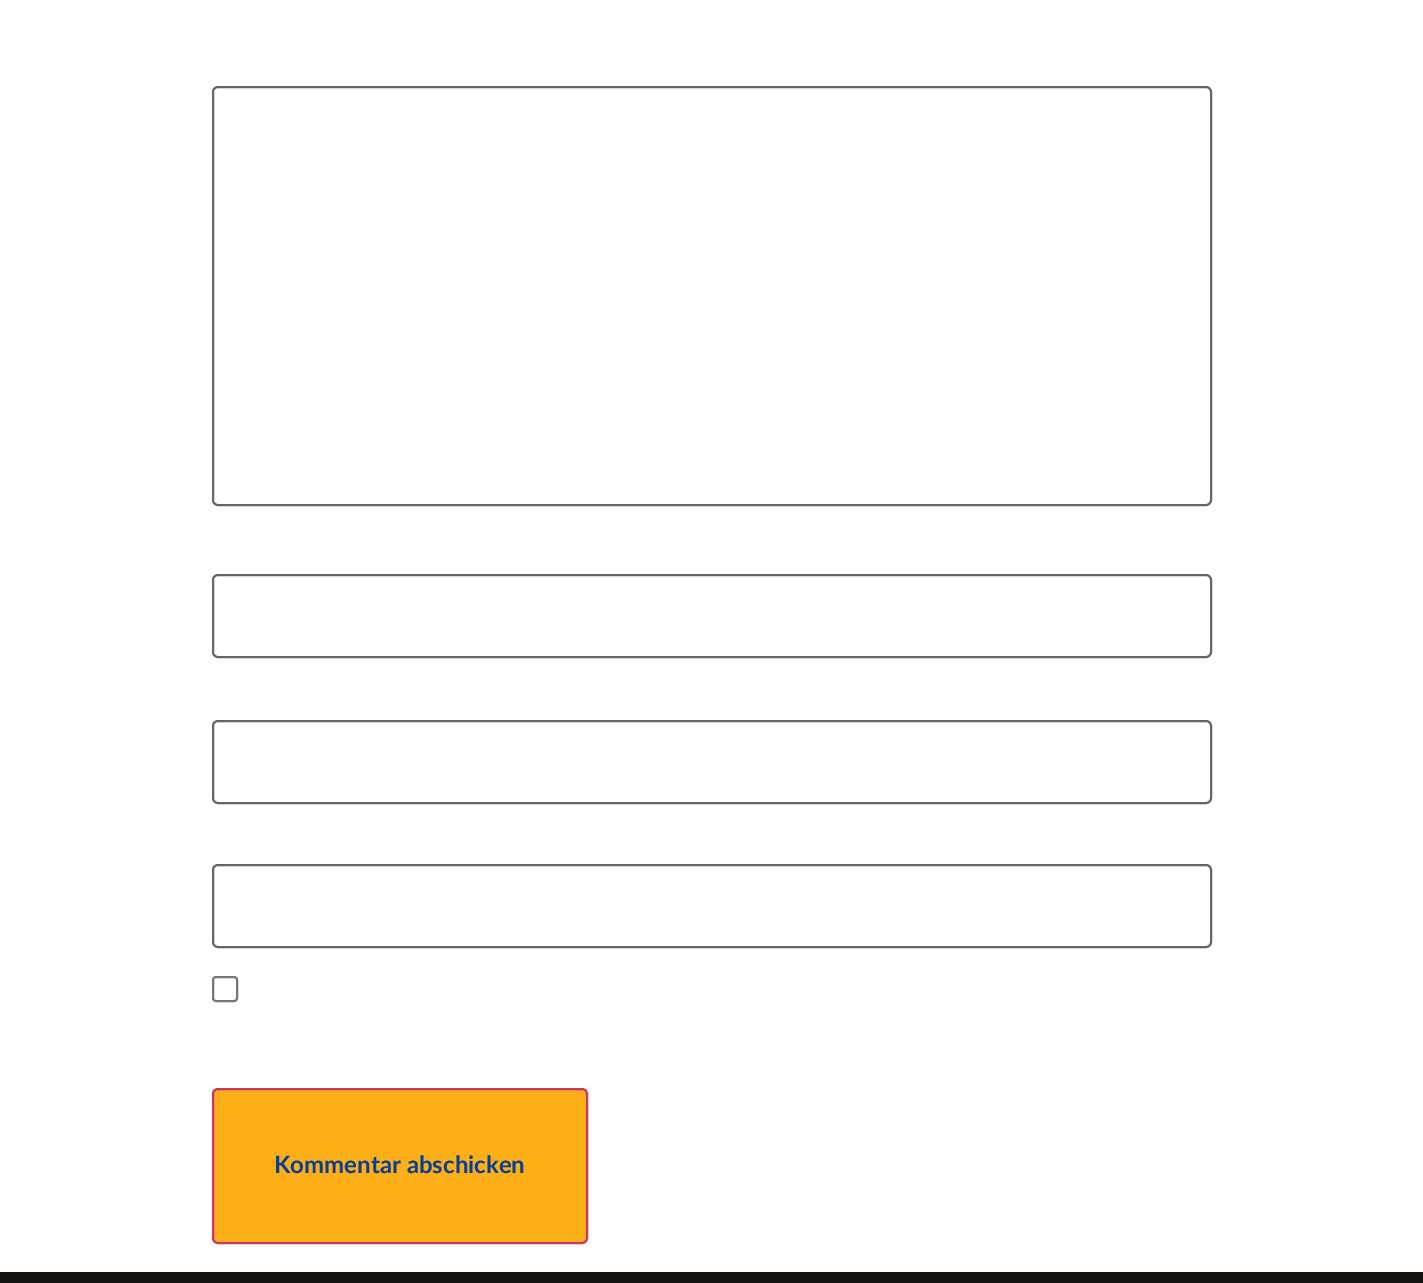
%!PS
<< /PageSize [1423 1283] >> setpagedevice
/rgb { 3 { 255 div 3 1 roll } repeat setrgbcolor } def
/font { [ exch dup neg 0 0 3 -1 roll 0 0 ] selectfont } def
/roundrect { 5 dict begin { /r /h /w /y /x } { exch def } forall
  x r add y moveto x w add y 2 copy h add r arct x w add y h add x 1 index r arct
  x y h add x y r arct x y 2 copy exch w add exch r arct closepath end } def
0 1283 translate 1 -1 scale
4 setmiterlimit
255 255 255 rgb
0 0 1423 1283 rectfill
102 102 102 rgb
2 setlinewidth
213 87 998 418 5 roundrect stroke
213 575 998 82 5 roundrect stroke
213 721 998 82 5 roundrect stroke
213 865 998 82 5 roundrect stroke
118 118 118 rgb
213 977 24 24 3 roundrect stroke
254 174 23 rgb
213 1089 374 154 5 roundrect gsave fill grestore
204 51 102 rgb
stroke
22 18 15 rgb
0 1272 1423 11 rectfill
/Lato-Bold 24 font
6 62 153 rgb
274 1173 moveto (Kommentar abschicken) show
showpage
